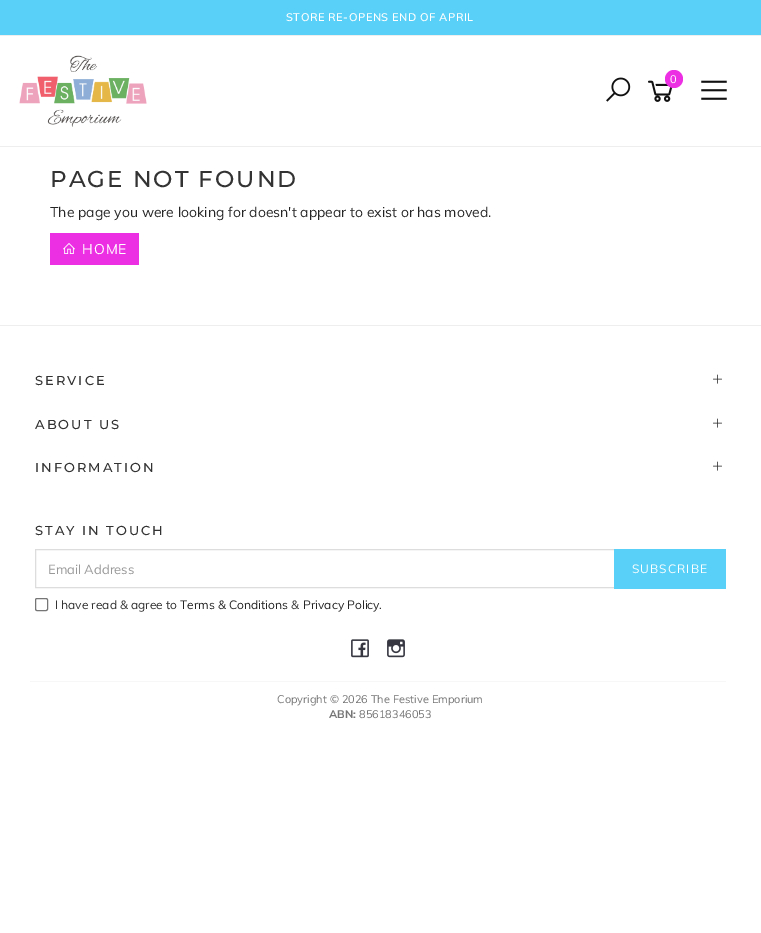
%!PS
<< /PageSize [761 933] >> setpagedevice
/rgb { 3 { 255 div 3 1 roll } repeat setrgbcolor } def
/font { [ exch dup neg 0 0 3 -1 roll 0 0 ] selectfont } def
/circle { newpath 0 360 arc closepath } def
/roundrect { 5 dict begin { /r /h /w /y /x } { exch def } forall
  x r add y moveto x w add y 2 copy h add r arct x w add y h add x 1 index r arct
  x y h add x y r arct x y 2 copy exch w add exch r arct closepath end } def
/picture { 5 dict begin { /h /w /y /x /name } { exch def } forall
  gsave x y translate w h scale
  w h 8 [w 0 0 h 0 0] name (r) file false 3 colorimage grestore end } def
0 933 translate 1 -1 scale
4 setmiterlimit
255 255 255 rgb
0 0 761 933 rectfill
[
  [0 0 761 35 89 208 247]
  [0 35 761 1 238 238 238]
  [0 146 761 1 238 238 238]
] { aload pop rgb rectfill } forall
(img/1.rgb) 19 55 128 72 picture
(img/2.rgb) 606 77 25 25 picture
(img/3.rgb) 648 80 25 22 picture
237 47 228 rgb
674 79 9 circle fill
(img/4.rgb) 701 80 26 20 picture
50 233 89 32 rectfill
(img/5.rgb) 63 243 12 11 picture
238 238 238 rgb
0 325 761 1 rectfill
(img/6.rgb) 713 374 9 10 picture
(img/6.rgb) 713 418 9 10 picture
(img/6.rgb) 713 461 9 10 picture
221 221 221 rgb
35.5 549.5 579 38 rectstroke
89 208 247 rgb
614 549 112 40 rectfill
118 118 118 rgb
35.5 598.5 12 12 1.5 roundrect stroke
247 247 247 rgb
30 681 696 1 rectfill
(img/7.rgb) 351 639 18 19 picture
(img/8.rgb) 387 639 18 19 picture
/Muli-SemiBold 11 font
255 255 255 rgb
286 21 moveto 0.5 0 (STORE RE-OPENS END OF APRIL) ashow
/Muli-Regular 11 font
670 83 moveto (0) show
/Montserrat-Medium 23 font
51 51 51 rgb
50 187 moveto 2 0 (PAGE NOT FOUND) ashow
/Muli-Regular 14 font
37 37 37 rgb
50 217 moveto (The page you were looking for doesn't appear to exist or has moved.) show
255 255 255 rgb
82 254 moveto 1 0 (HOME) ashow
/Montserrat-Medium 13 font
51 51 51 rgb
35 385 moveto 2 0 (SERVICE) ashow
35 429 moveto 2 0 (ABOUT US) ashow
35 472 moveto 2 0 (INFORMATION) ashow
35 535 moveto 2 0 (STAY IN TOUCH) ashow
/Muli-Regular 13 font
153 153 153 rgb
48 574 moveto (Email Address) show
/Muli-Regular 12 font
255 255 255 rgb
632 573 moveto 1 0 (SUBSCRIBE) ashow
51 51 51 rgb
55 609 moveto (I have read & agree to) show
37 37 37 rgb
180 609 moveto (Terms & Conditions) show
51 51 51 rgb
291 609 moveto (&) show
37 37 37 rgb
303 609 moveto (Privacy Policy) show
51 51 51 rgb
379 609 moveto (.) show
/Muli-Regular 11 font
117 117 117 rgb
277 703 moveto (Copyright © 2026 The Festive Emporium) show
/Muli-Bold 11 font
329 718 moveto (ABN:) show
/Muli-Regular 11 font
359 718 moveto (85618346053) show
showpage
